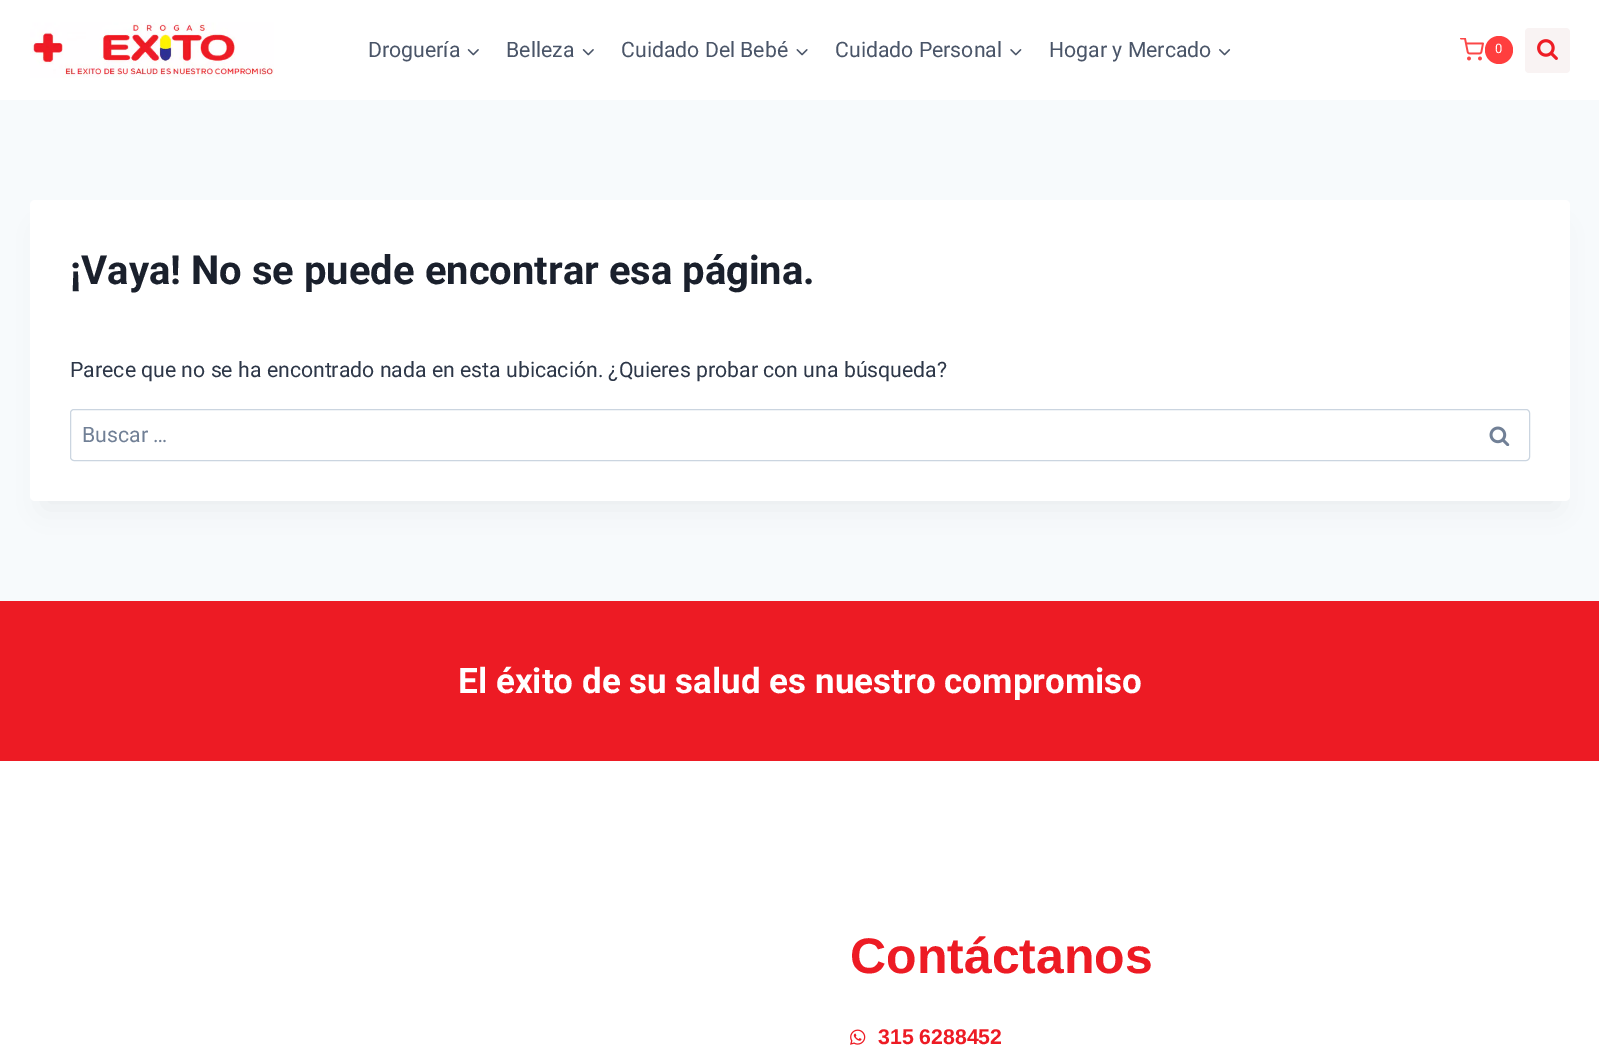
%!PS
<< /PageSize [1599 1052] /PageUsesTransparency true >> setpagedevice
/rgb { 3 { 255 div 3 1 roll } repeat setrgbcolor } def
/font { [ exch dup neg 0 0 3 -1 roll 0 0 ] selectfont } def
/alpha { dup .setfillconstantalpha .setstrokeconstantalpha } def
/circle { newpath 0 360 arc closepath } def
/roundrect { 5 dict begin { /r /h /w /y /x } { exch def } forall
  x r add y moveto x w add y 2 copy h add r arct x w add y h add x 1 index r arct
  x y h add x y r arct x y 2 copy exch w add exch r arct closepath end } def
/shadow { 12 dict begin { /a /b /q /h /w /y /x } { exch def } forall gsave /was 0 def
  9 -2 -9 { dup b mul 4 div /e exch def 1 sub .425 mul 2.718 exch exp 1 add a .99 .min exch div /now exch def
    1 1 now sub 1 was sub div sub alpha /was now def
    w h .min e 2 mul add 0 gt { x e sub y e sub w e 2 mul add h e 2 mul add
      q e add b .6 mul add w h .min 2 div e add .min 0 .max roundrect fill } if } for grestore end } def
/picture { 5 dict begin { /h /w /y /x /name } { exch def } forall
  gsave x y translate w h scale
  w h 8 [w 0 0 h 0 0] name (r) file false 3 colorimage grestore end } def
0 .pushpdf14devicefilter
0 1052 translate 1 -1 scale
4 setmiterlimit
247 250 252 rgb
0 0 1599 1052 rectfill
255 255 255 rgb
0 0 1599 100 rectfill
(img/1.rgb) 30 22 244 56 picture
(img/2.rgb) 467 49 12 7 picture
(img/2.rgb) 582 49 12 7 picture
(img/3.rgb) 796 49 12 7 picture
(img/4.rgb) 1010 49 12 7 picture
(img/5.rgb) 1219 49 12 7 picture
(img/6.rgb) 1460 38 24 23 picture
255 62 62 rgb
1499 50 14 circle fill
249 243 243 rgb
1525 28 45 45 4 roundrect fill
(img/7.rgb) 1537 39 21 21 picture
0 0 0 rgb
43 231 1515 277 0 15.5 0.05 shadow
255 255 255 rgb
30 200 1540 301 5 roundrect fill
203 213 224 rgb
70.5 409.5 1459 51 3.5 roundrect stroke
(img/8.rgb) 1489 426 21 20 picture
237 27 36 rgb
0 601 1599 160 rectfill
255 255 255 rgb
0 761 1599 291 rectfill
(img/9.rgb) 850 1029 16 16 picture
/Roboto-Regular 21.25 font
74 85 104 rgb
[
  [(Droguería) 368 57]
  [(Belleza) 506 57]
  [(Cuidado Del Bebé) 621 57]
  [(Cuidado Personal) 835 57]
  [(Hogar y Mercado) 1049 57]
] { aload pop moveto show } forall
/Roboto-Regular 13 font
255 255 255 rgb
1495 53 moveto (0) show
/Roboto-Bold 40 font
26 32 44 rgb
70 284 moveto (¡Vaya! No se puede encontrar esa página.) show
/Roboto-Regular 21.25 font
45 55 72 rgb
70 377 moveto (Parece que no se ha encontrado nada en esta ubicación. ¿Quieres probar con una búsqueda?) show
113 128 150 rgb
82 442 moveto (Buscar …) show
/Roboto-Bold 35 font
255 255 255 rgb
458 693 moveto (El éxito de su salud es nuestro compromiso) show
/LiberationSans-Bold 50 font
237 27 36 rgb
850 973 moveto (Contáctanos) show
/LiberationSans-Bold 21.25 font
878 1044 moveto (315 6288452) show
.poppdf14devicefilter showpage
